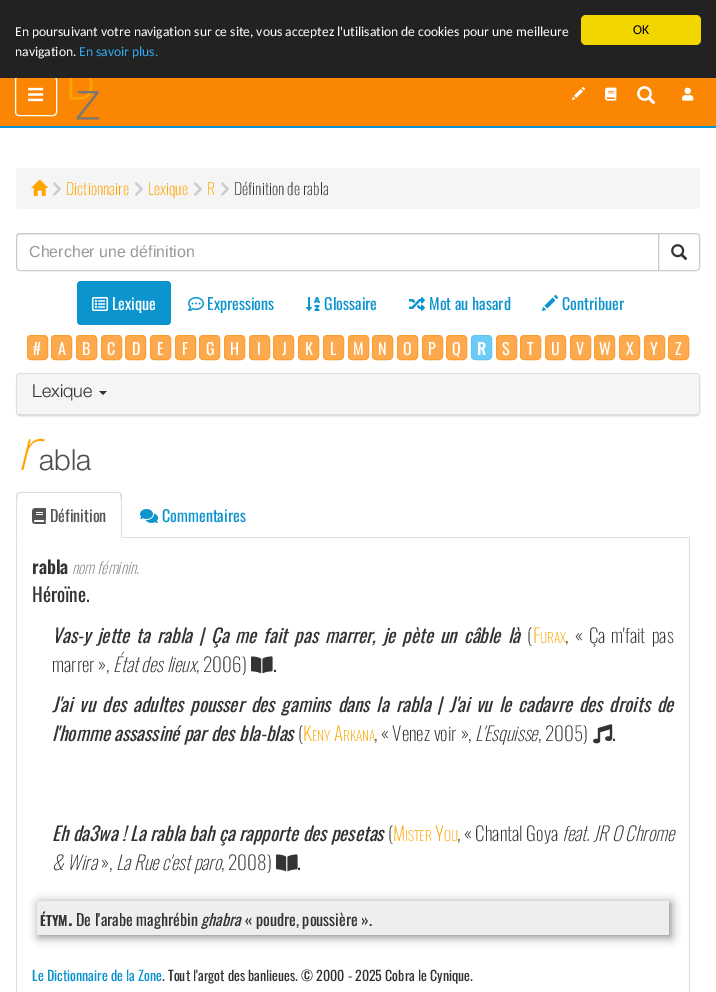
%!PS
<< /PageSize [716 992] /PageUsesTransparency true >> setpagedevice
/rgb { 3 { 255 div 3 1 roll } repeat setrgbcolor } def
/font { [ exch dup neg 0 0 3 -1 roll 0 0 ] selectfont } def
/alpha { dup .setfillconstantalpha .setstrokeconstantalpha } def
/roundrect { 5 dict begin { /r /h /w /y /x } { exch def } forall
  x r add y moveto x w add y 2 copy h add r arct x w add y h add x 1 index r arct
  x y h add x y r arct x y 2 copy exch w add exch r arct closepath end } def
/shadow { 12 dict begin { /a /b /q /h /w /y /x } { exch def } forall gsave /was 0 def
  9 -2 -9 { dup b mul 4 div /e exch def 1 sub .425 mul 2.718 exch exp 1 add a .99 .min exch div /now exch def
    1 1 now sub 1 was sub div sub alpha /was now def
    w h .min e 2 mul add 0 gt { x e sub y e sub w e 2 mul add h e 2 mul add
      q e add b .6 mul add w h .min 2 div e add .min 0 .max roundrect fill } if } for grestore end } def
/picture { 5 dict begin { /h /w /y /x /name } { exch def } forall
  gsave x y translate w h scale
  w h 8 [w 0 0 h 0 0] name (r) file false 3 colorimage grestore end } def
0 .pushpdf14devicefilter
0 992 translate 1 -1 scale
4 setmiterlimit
255 255 255 rgb
0 0 716 992 rectfill
251 134 3 rgb
0 78 716 48 rectfill
255 255 255 rgb
15.5 76.5 41 39 3.5 roundrect stroke
34 34 34 rgb
0 0 716 78 rectfill
241 214 0 rgb
581 15 120 30 5 roundrect fill
12 148 206 rgb
0 126 716 2 rectfill
(img/1.rgb) 28 87 16 15 picture
(img/2.rgb) 69 78 30 42 picture
(img/3.rgb) 572 87 13 13 picture
(img/4.rgb) 605 87 12 14 picture
(img/5.rgb) 637 86 19 19 picture
(img/6.rgb) 682 87 12 14 picture
245 245 245 rgb
16 168 684 41 4 roundrect fill
(img/7.rgb) 31 179 18 17 picture
(img/8.rgb) 53 182 8 14 picture
(img/8.rgb) 135 182 8 14 picture
(img/8.rgb) 194 182 8 14 picture
(img/8.rgb) 221 182 8 14 picture
236 236 236 rgb
20 235 moveto 658 235 lineto 658 234 lineto 20 234 lineto 18 234 17 235 17 237 curveto 17 238 lineto 17 236 18 235 20 235 curveto closepath fill
204 204 204 rgb
20 233.5 moveto 658.5 233.5 lineto 658.5 270.5 lineto 20 270.5 lineto 18 270.5 16.5 269 16.5 267 curveto 16.5 237 lineto 16.5 235 18 233.5 20 233.5 curveto closepath stroke
255 255 255 rgb
658.5 233.5 moveto 696 233.5 lineto 698 233.5 699.5 235 699.5 237 curveto 699.5 267 lineto 699.5 269 698 270.5 696 270.5 curveto 658.5 270.5 lineto closepath gsave fill grestore
204 204 204 rgb
stroke
(img/9.rgb) 671 244 17 17 picture
12 148 206 rgb
77 281 94 44 4 roundrect fill
(img/10.rgb) 92 297 16 14 picture
(img/11.rgb) 188 297 16 14 picture
(img/12.rgb) 306 297 14 14 picture
(img/13.rgb) 409 297 16 14 picture
(img/14.rgb) 541 294 18 18 picture
253 170 78 rgb
27.5 335.5 20 24 3.5 roundrect gsave fill grestore
253 158 52 rgb
stroke
253 170 78 rgb
51.5 335.5 20 24 3.5 roundrect gsave fill grestore
253 158 52 rgb
stroke
253 170 78 rgb
76.5 335.5 20 24 3.5 roundrect gsave fill grestore
253 158 52 rgb
stroke
253 170 78 rgb
101.5 335.5 20 24 3.5 roundrect gsave fill grestore
253 158 52 rgb
stroke
253 170 78 rgb
125.5 335.5 20 24 3.5 roundrect gsave fill grestore
253 158 52 rgb
stroke
253 170 78 rgb
150.5 335.5 20 24 3.5 roundrect gsave fill grestore
253 158 52 rgb
stroke
253 170 78 rgb
175.5 335.5 20 24 3.5 roundrect gsave fill grestore
253 158 52 rgb
stroke
253 170 78 rgb
199.5 335.5 20 24 3.5 roundrect gsave fill grestore
253 158 52 rgb
stroke
253 170 78 rgb
224.5 335.5 20 24 3.5 roundrect gsave fill grestore
253 158 52 rgb
stroke
253 170 78 rgb
249.5 335.5 20 24 3.5 roundrect gsave fill grestore
253 158 52 rgb
stroke
253 170 78 rgb
273.5 335.5 20 24 3.5 roundrect gsave fill grestore
253 158 52 rgb
stroke
253 170 78 rgb
298.5 335.5 20 24 3.5 roundrect gsave fill grestore
253 158 52 rgb
stroke
253 170 78 rgb
323.5 335.5 20 24 3.5 roundrect gsave fill grestore
253 158 52 rgb
stroke
253 170 78 rgb
348.5 335.5 20 24 3.5 roundrect gsave fill grestore
253 158 52 rgb
stroke
253 170 78 rgb
372.5 335.5 20 24 3.5 roundrect gsave fill grestore
253 158 52 rgb
stroke
253 170 78 rgb
397.5 335.5 20 24 3.5 roundrect gsave fill grestore
253 158 52 rgb
stroke
253 170 78 rgb
422.5 335.5 20 24 3.5 roundrect gsave fill grestore
253 158 52 rgb
stroke
253 170 78 rgb
446.5 335.5 20 24 3.5 roundrect gsave fill grestore
253 158 52 rgb
stroke
107 204 247 rgb
471.5 335.5 20 24 3.5 roundrect gsave fill grestore
98 197 239 rgb
stroke
253 170 78 rgb
496.5 335.5 20 24 3.5 roundrect gsave fill grestore
253 158 52 rgb
stroke
253 170 78 rgb
520.5 335.5 20 24 3.5 roundrect gsave fill grestore
253 158 52 rgb
stroke
253 170 78 rgb
545.5 335.5 20 24 3.5 roundrect gsave fill grestore
253 158 52 rgb
stroke
253 170 78 rgb
570.5 335.5 20 24 3.5 roundrect gsave fill grestore
253 158 52 rgb
stroke
253 170 78 rgb
594.5 335.5 20 24 3.5 roundrect gsave fill grestore
253 158 52 rgb
stroke
253 170 78 rgb
619.5 335.5 20 24 3.5 roundrect gsave fill grestore
253 158 52 rgb
stroke
253 170 78 rgb
644.5 335.5 20 24 3.5 roundrect gsave fill grestore
253 158 52 rgb
stroke
253 170 78 rgb
668.5 335.5 20 24 3.5 roundrect gsave fill grestore
253 158 52 rgb
stroke
0 0 0 rgb
16 374 684 43 4 0.5 0.05 shadow
221 221 221 rgb
16.5 373.5 683 42 3.5 roundrect stroke
245 245 245 rgb
20 374 moveto 696 374 lineto 697.5 374 699 375.5 699 377 curveto 699 415 lineto 17 415 lineto 17 377 lineto 17 375.5 18.5 374 20 374 curveto closepath fill
221 221 221 rgb
17 414 682 1 rectfill
51 51 51 rgb
99 391 moveto 107 391 lineto 103 395 lineto closepath fill
221 221 221 rgb
122 537 568 1 rectfill
20 492 moveto 17 493 lineto 18 494 lineto 20 493 lineto 118 493 lineto 120 494 lineto 121 493 lineto 118 492 lineto closepath fill
122 538 moveto 122 496 lineto 122 495 122 494 121 493 curveto 120 494 lineto 122 496 121 532 121 537 curveto closepath fill
16 538 moveto 17 537 lineto 17 532 16 496 18 494 curveto 17 493 lineto 16 496 lineto closepath fill
(img/15.rgb) 32 508 14 16 picture
(img/16.rgb) 140 509 18 14 picture
689 538 1 454 rectfill
16 538 1 454 rectfill
(img/17.rgb) 251 656 22 18 picture
(img/18.rgb) 593 724 20 20 picture
(img/17.rgb) 276 854 22 18 picture
128 128 128 rgb
39 903 632 34 0 5 1 shadow
238 238 238 rgb
37 901 632 34 rectfill
/Carlito-Regular 13.6 font
255 255 255 rgb
15 36 moveto (En poursuivant votre navigation sur ce site, vous acceptez l'utilisation de cookies pour une meilleure) show
15 56 moveto (navigation.) show
49 168 240 rgb
79 56 moveto (En savoir plus.) show
0 0 0 rgb
633 34 moveto (OK) show
/Oswald-ExtraLight 16 font
255 165 0 rgb
[
  [(Dictionnaire) 66 195]
  [(Lexique) 148 195]
  [(R) 207 195]
] { aload pop moveto show } forall
51 51 51 rgb
234 195 moveto (Définition de rabla) show
/LiberationSans-Regular 16 font
153 153 153 rgb
29 257 moveto (Chercher une définition) show
/Oswald-Regular 16 font
255 255 255 rgb
112 310 moveto (Lexique) show
12 148 206 rgb
[
  [(Expressions) 207 310]
  [(Glossaire) 324 310]
  [(Mot au hasard) 429 310]
  [(Contribuer) 562 310]
] { aload pop moveto show } forall
255 255 255 rgb
[
  [(#) 33 355]
  [(A) 58 355]
  [(B) 82 355]
  [(C) 107 355]
  [(D) 132 355]
  [(E) 157 355]
  [(F) 182 355]
  [(G) 206 355]
  [(H) 230 355]
  [(I) 257 355]
  [(J) 282 355]
  [(K) 305 355]
  [(L) 330 355]
  [(M) 353 355]
  [(N) 378 355]
  [(O) 403 355]
  [(P) 428 355]
  [(Q) 452 355]
] { aload pop moveto show } forall
/Oswald-SemiBold 16 font
477 355 moveto (R) show
/Oswald-Regular 16 font
[
  [(S) 502 355]
  [(T) 527 355]
  [(U) 551 355]
  [(V) 576 355]
  [(W) 599 355]
  [(X) 626 355]
  [(Y) 650 355]
  [(Z) 675 355]
] { aload pop moveto show } forall
/HelveticaNeue-Light 18 font
51 51 51 rgb
32 397 moveto (Lexique) show
/NotoSans-ExtraLightItalic 58 font
255 165 0 rgb
16 470 moveto (r) show
/HelveticaNeue-Light 29 font
77 77 77 rgb
39 470 moveto (abla) show
/Oswald-Regular 16 font
85 85 85 rgb
50 522 moveto (Définition) show
12 148 206 rgb
162 522 moveto (Commentaires) show
/Oswald-SemiBold 18 font
51 51 51 rgb
32 574 moveto (rabla) show
/Oswald-ExtraLightItalic 16 font
128 128 128 rgb
72 574 moveto (nom féminin.) show
/Oswald-Regular 19.2 font
51 51 51 rgb
32 602 moveto (Héroïne.) show
/Oswald-Italic 19.2 font
52 643 moveto 2.6 0 32 (Vas-y jette ta rabla | Ça me fait pas marrer, je pète un câble là) widthshow
/Oswald-ExtraLight 19.2 font
527 643 moveto (\() show
255 165 0 rgb
533 643 moveto (F) show
/Oswald-ExtraLight 13.5 font
540 643 moveto (URAX) show
/Oswald-ExtraLight 19.2 font
51 51 51 rgb
565 643 moveto 2.6 0 32 (, « Ça m'fait pas) widthshow
52 672 moveto (marrer »,) show
/Oswald-ExtraLightItalic 19.2 font
113 672 moveto (État des lieux) show
/Oswald-ExtraLight 19.2 font
196 672 moveto (, 2006\)) show
/Oswald-Regular 19.2 font
273 672 moveto (.) show
/Oswald-Italic 19.2 font
52 712 moveto 2.5 0 32 (J'ai vu des adultes pousser des gamins dans la rabla | J'ai vu le cadavre des droits de) widthshow
52 741 moveto (l'homme assassiné par des bla-blas) show
/Oswald-ExtraLight 19.2 font
298 741 moveto (\() show
255 165 0 rgb
303 741 moveto (K) show
/Oswald-ExtraLight 13.5 font
312 741 moveto (ENY) show
/Oswald-ExtraLight 19.2 font
334 741 moveto (A) show
/Oswald-ExtraLight 13.5 font
343 741 moveto (RKANA) show
/Oswald-ExtraLight 19.2 font
51 51 51 rgb
374 741 moveto (, « Venez voir »,) show
/Oswald-ExtraLightItalic 19.2 font
475 741 moveto (L'Esquisse) show
/Oswald-ExtraLight 19.2 font
538 741 moveto (, 2005\)) show
/Oswald-Regular 19.2 font
612 741 moveto (.) show
/Oswald-Italic 19.2 font
52 841 moveto (Eh da3wa ! La rabla bah ça rapporte des pesetas) show
/Oswald-ExtraLight 19.2 font
388 841 moveto (\() show
255 165 0 rgb
393 841 moveto (M) show
/Oswald-ExtraLight 13.5 font
405 841 moveto (ISTER) show
/Oswald-ExtraLight 19.2 font
435 841 moveto (Y) show
/Oswald-ExtraLight 13.5 font
444 841 moveto (OU) show
/Oswald-ExtraLight 19.2 font
51 51 51 rgb
457 841 moveto (, « Chantal Goya) show
/Oswald-ExtraLightItalic 19.2 font
562 841 moveto (feat. JR O Chrome) show
52 870 moveto (& Wira) show
/Oswald-ExtraLight 19.2 font
101 870 moveto (»,) show
/Oswald-ExtraLightItalic 19.2 font
116 870 moveto (La Rue c'est paro) show
/Oswald-ExtraLight 19.2 font
221 870 moveto (, 2008\)) show
/Oswald-Regular 19.2 font
297 870 moveto (.) show
/Oswald-SemiBold 13.5 font
40 926 moveto (ÉTYM) show
/Oswald-SemiBold 19.2 font
68 926 moveto (.) show
/Oswald-Regular 16 font
76 926 moveto (De l'arabe maghrébin) show
/Oswald-Italic 16 font
201 926 moveto (ghabra) show
/Oswald-Regular 16 font
245 926 moveto (« poudre, poussière ».) show
/Oswald-Regular 13.9 font
12 148 206 rgb
32 981 moveto (Le Dictionnaire de la Zone) show
51 51 51 rgb
162 981 moveto (. Tout l'argot des banlieues. © 2000 - 2025 Cobra le Cynique.) show
.poppdf14devicefilter showpage
